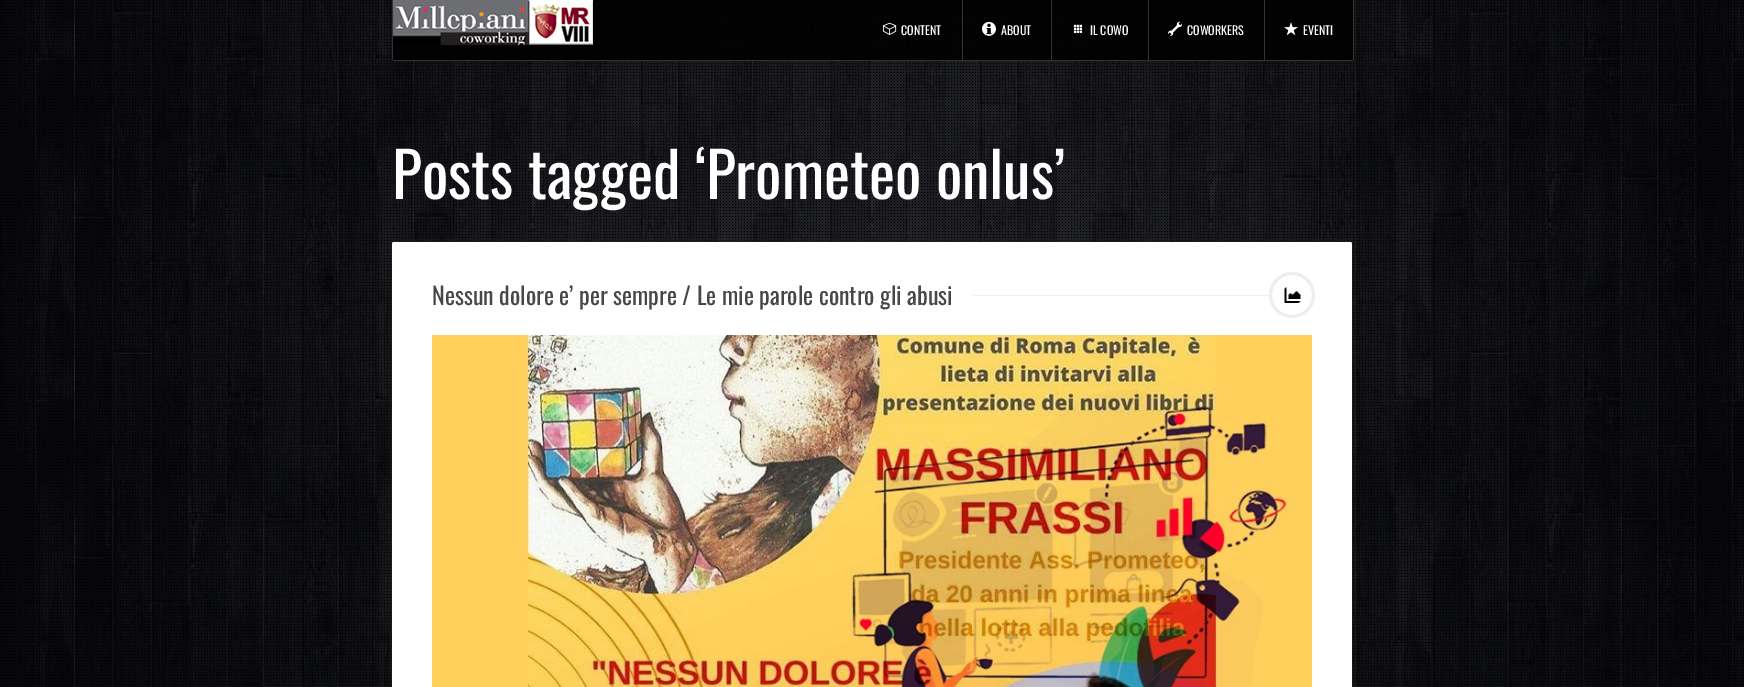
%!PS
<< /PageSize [1744 687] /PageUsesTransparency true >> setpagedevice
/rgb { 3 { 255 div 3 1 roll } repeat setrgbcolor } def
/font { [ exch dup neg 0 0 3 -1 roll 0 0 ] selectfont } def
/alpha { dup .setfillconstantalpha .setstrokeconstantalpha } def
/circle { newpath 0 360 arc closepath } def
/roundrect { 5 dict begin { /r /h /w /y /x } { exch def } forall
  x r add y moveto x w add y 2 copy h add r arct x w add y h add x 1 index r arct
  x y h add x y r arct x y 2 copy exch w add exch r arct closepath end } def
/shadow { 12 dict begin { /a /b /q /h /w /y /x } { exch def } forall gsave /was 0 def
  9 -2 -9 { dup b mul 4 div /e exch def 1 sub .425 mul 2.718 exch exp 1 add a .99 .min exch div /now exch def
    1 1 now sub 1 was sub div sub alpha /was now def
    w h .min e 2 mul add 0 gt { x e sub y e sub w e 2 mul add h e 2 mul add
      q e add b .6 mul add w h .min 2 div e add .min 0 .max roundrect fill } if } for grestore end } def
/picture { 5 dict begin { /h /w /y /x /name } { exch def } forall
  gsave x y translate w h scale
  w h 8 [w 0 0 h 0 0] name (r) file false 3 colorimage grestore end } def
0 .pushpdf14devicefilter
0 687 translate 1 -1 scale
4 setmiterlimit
255 255 255 rgb
0 0 1744 687 rectfill
(img/1.rgb) 0 1 1 686 picture
(img/3.rgb) 1 0 1743 687 picture
(img/2.rgb) 0 0 1744 685 picture
0.9 alpha
0 0 0 rgb
392 0 moveto 1354 0 lineto 1354 59 lineto 1354 60 1353 61 1352 61 curveto 394 61 lineto 393 61 392 60 392 59 curveto closepath fill
1 alpha
[
  [1353 0 1 60 51 51 51]
  [393 60 960 1 51 51 51]
  [392 0 1 60 51 51 51]
] { aload pop rgb rectfill } forall
(img/4.rgb) 393 0 200 45 picture
(img/5.rgb) 883 22 14 13 picture
(img/6.rgb) 982 21 14 15 picture
962 0 1 60 rectfill
(img/7.rgb) 1073 24 10 9 picture
1051 0 1 60 rectfill
(img/8.rgb) 1168 21 14 15 picture
1148 0 1 60 rectfill
(img/9.rgb) 1284 22 14 14 picture
1264 0 1 60 rectfill
34 34 34 rgb
392 242 960 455 2 2.5 1 shadow
255 255 255 rgb
392 242 960 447 2 roundrect fill
241 241 241 rgb
973 295 297 1 rectfill
255 255 255 rgb
1292 295 23 circle fill
(img/10.rgb) 1284 287 17 16 picture
238 238 238 rgb
3 setlinewidth
1292 295 21.5 circle stroke
(img/11.rgb) 432 335 880 352 picture
/Oswald-Regular 12 font
255 255 255 rgb
[
  [(CONTENT) 901 35]
  [(ABOUT) 1001 35]
  [(IL COWO) 1090 35]
  [(COWORKERS) 1187 35]
  [(EVENTI) 1303 35]
] { aload pop moveto show } forall
/Oswald-Regular 62 font
392 199 moveto (Posts tagged ‘Prometeo onlus’) show
/Oswald-Regular 24 font
71 71 71 rgb
432 305 moveto (Nessun dolore e’ per sempre / Le mie parole contro gli abusi) show
.poppdf14devicefilter showpage
